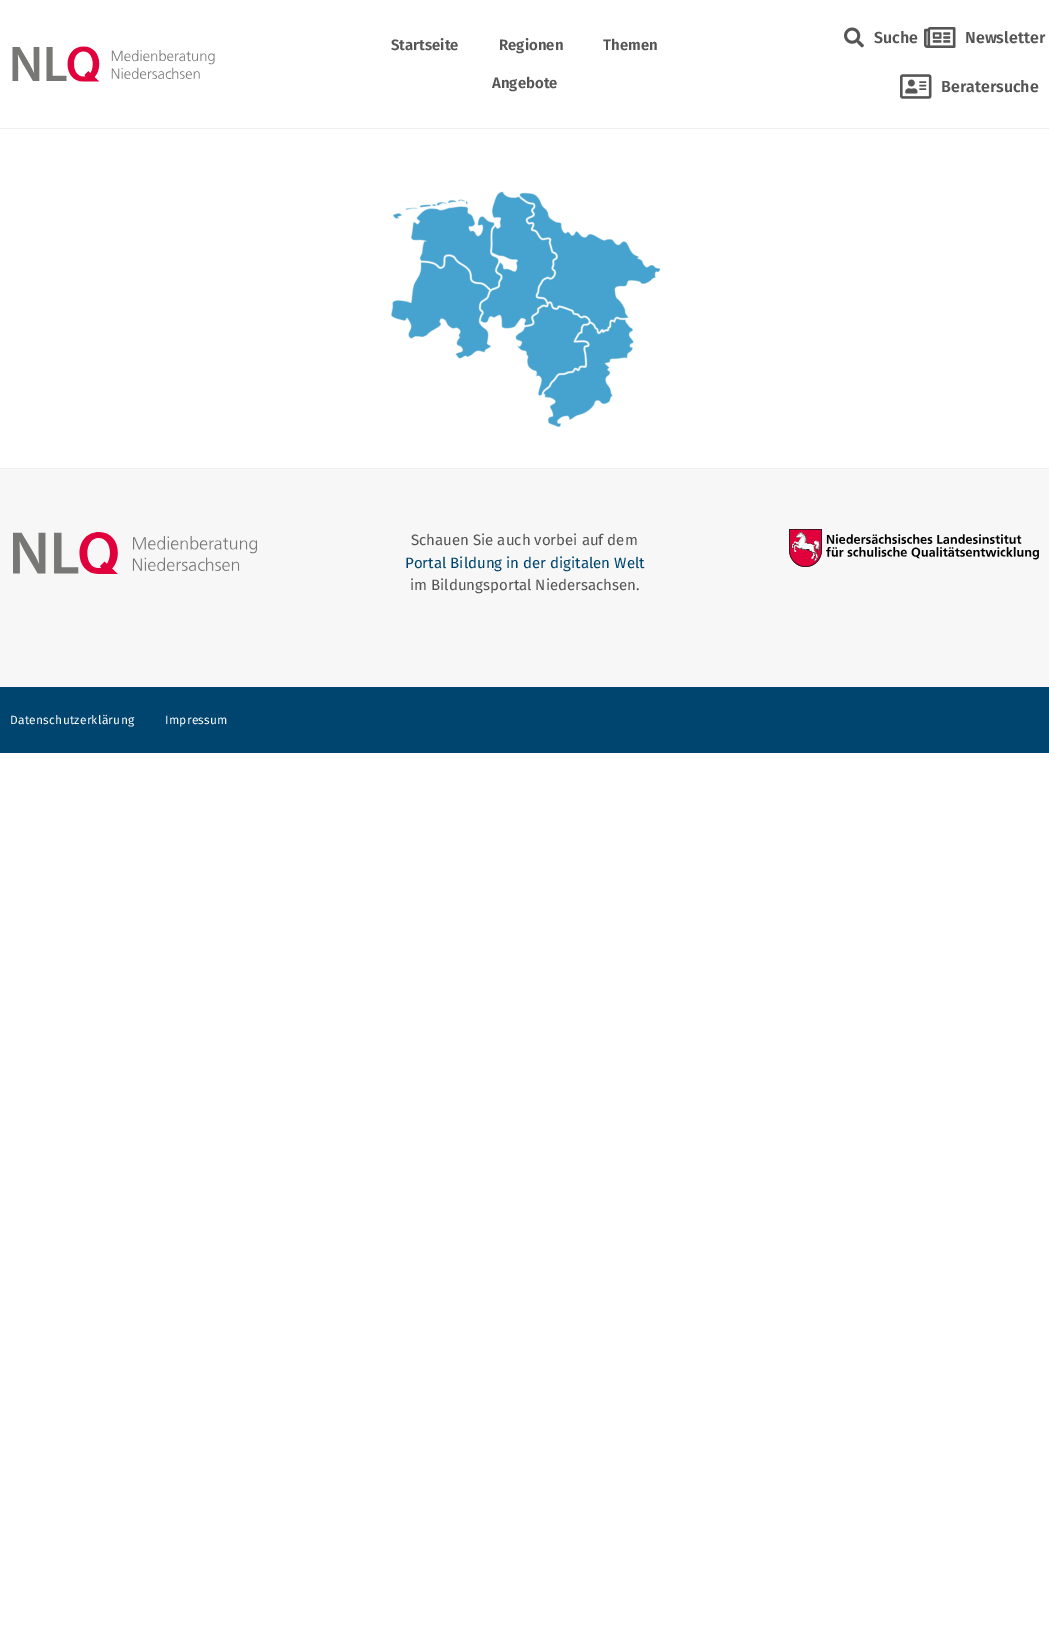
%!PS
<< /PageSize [1049 1627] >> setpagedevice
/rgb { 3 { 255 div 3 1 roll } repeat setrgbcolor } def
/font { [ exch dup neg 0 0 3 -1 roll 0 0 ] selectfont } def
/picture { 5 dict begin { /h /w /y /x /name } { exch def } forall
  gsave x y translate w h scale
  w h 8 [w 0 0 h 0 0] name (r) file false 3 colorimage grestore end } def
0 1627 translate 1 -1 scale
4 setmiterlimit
255 255 255 rgb
0 0 1049 1627 rectfill
238 238 238 rgb
0 128 1049 1 rectfill
(img/1.rgb) 12 46 203 36 picture
(img/2.rgb) 844 27 20 21 picture
(img/3.rgb) 924 27 32 21 picture
(img/4.rgb) 900 74 32 25 picture
(img/5.rgb) 391 191 270 237 picture
247 247 247 rgb
0 469 1049 218 rectfill
238 238 238 rgb
0 468 1049 1 rectfill
(img/6.rgb) 13 532 244 42 picture
(img/7.rgb) 789 529 250 38 picture
0 69 111 rgb
0 687 1049 66 rectfill
/FiraSans-SemiBold 15 font
85 85 85 rgb
[
  [(Startseite) 391 50]
  [(Regionen) 499 50]
  [(Themen) 603 50]
  [(Angebote) 492 88]
] { aload pop moveto show } forall
/FiraSans-SemiBold 16 font
[
  [(Suche) 874 43]
  [(Newsletter) 965 43]
  [(Beratersuche) 941 92]
] { aload pop moveto show } forall
/FiraSans-Regular 15 font
411 545 moveto (Schauen Sie auch vorbei auf dem) show
0 69 111 rgb
405 568 moveto (Portal Bildung in der digitalen Welt) show
85 85 85 rgb
410 590 moveto (im Bildungsportal Niedersachsen.) show
/FiraSans-Regular 12 font
255 255 255 rgb
10 724 moveto 0.25 0 (Datenschutzerklärung) ashow
165 724 moveto 0.25 0 (Impressum) ashow
showpage
